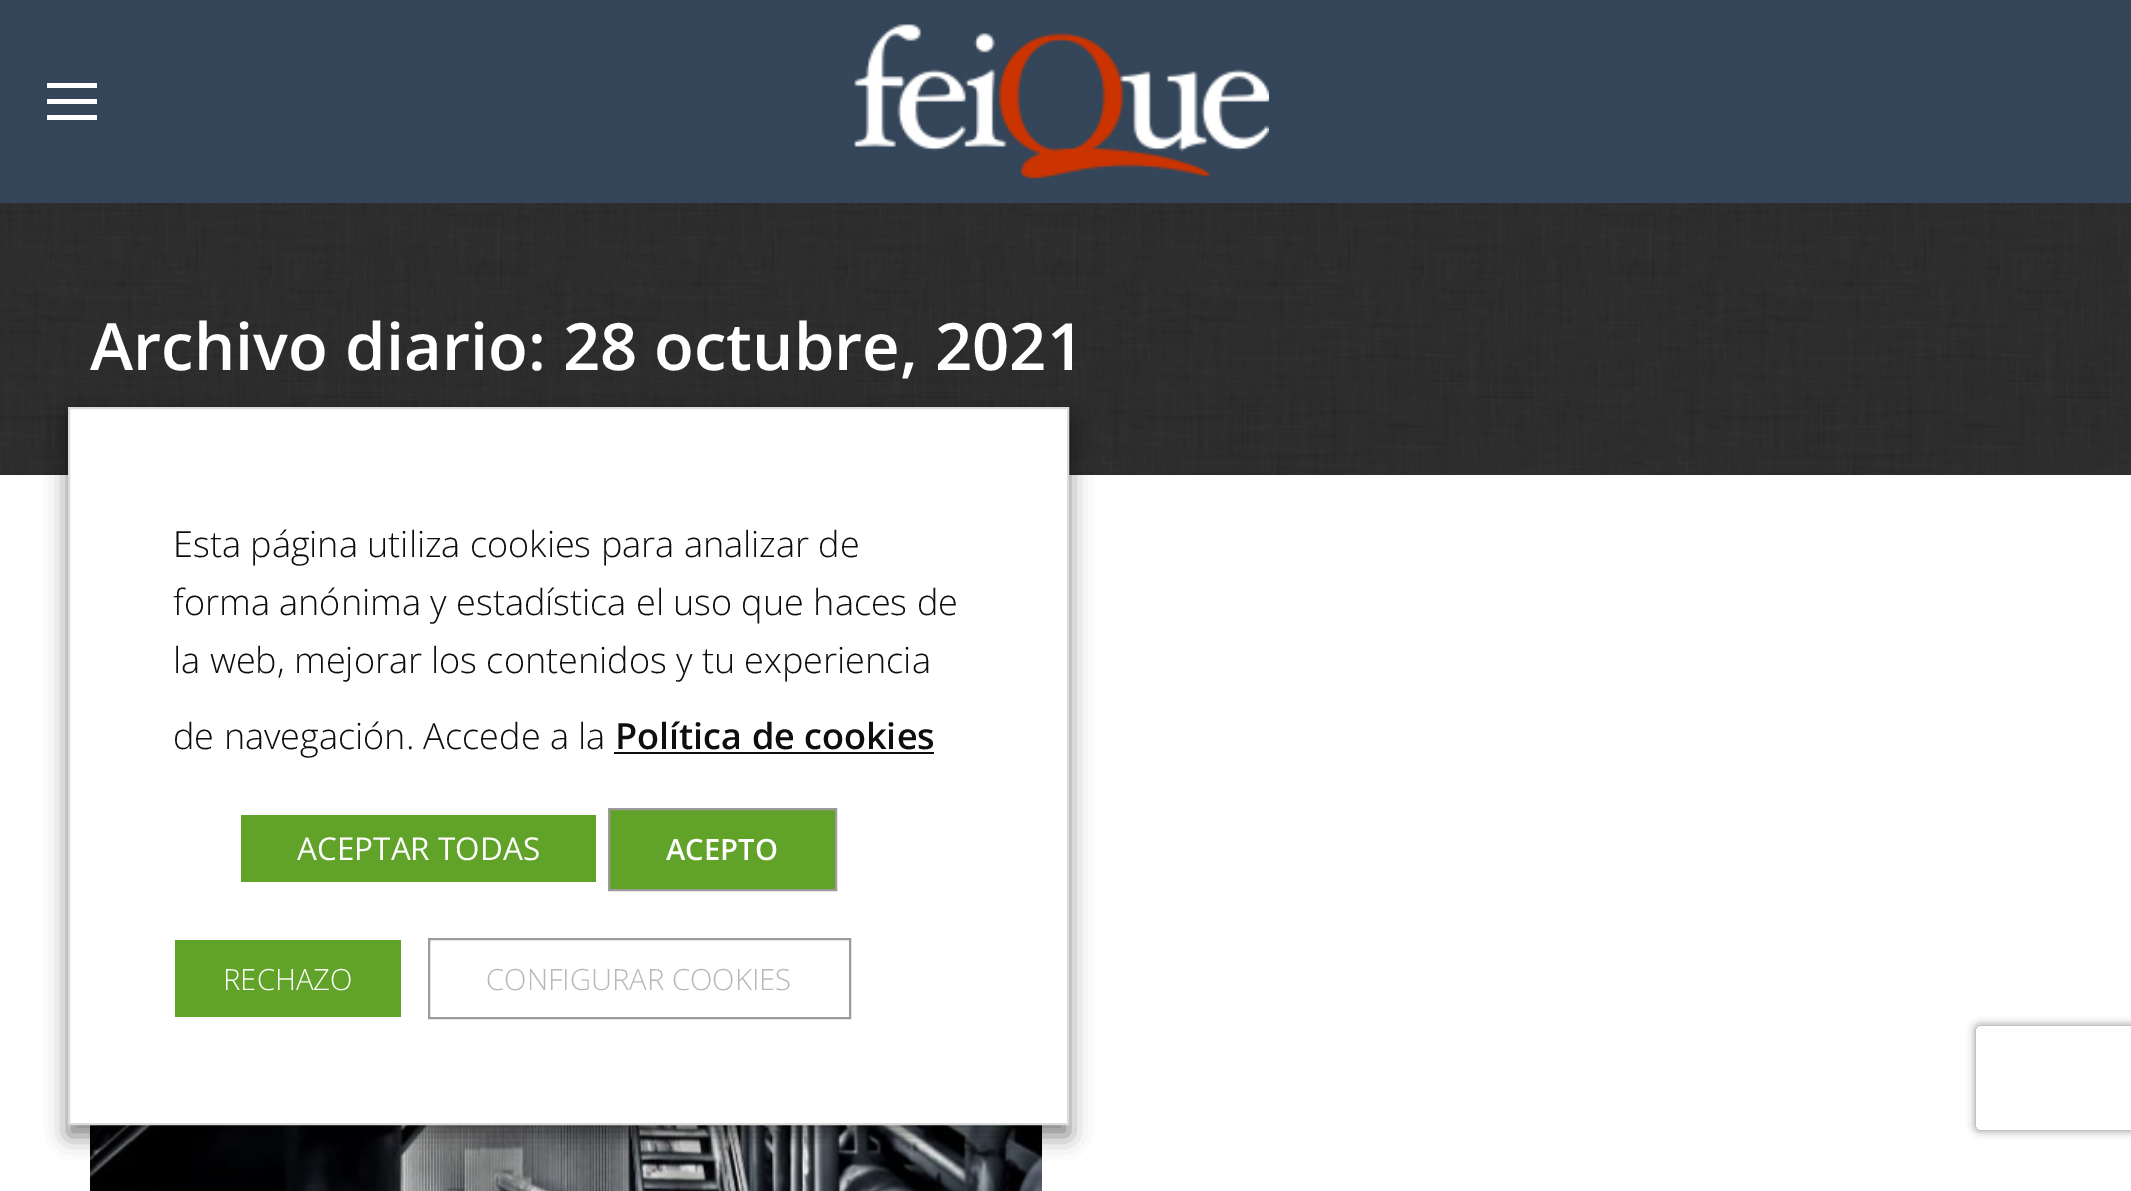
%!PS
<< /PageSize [2131 1191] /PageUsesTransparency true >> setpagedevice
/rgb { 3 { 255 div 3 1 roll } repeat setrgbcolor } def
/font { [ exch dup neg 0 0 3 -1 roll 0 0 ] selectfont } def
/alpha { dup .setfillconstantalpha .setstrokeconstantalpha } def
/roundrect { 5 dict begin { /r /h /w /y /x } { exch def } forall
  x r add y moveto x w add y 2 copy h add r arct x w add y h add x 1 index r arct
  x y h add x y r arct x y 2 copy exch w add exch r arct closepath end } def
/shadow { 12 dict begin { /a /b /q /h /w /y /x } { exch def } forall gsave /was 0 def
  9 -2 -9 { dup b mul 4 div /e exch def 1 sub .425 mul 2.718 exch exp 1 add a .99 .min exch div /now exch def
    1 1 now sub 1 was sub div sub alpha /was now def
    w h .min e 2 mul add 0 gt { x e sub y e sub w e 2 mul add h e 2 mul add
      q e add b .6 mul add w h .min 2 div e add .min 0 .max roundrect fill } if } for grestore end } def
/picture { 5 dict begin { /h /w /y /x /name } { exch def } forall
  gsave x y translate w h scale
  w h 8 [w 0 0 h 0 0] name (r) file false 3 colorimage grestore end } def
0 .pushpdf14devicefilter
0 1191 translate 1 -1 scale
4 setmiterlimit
255 255 255 rgb
0 0 2131 1191 rectfill
(img/2.rgb) 0 0 2131 475 picture
0.82 alpha
[
  [0 0 2131 203 54 75 99]
] { aload pop rgb rectfill } forall
1 alpha
[
  [47 83 50 5 255 255 255]
  [47 99 50 5 255 255 255]
  [47 115 50 5 255 255 255]
] { aload pop rgb rectfill } forall
(img/1.rgb) 854 24 415 155 picture
(img/3.rgb) 90 1125 952 66 picture
0 0 0 rgb
68 419 1001 717 0 11 0.5 shadow
255 255 255 rgb
69 408 moveto 1068 408 lineto 1068 1124 lineto 69 1124 lineto closepath gsave fill grestore
219 219 219 rgb
2 setlinewidth
stroke
14 14 14 rgb
614 752 320 2 rectfill
97 162 41 rgb
241 815 355 67 rectfill
609 809 moveto 836 809 lineto 836 890 lineto 609 890 lineto closepath gsave fill grestore
155 155 155 rgb
stroke
97 162 41 rgb
175 940 226 77 rectfill
155 155 155 rgb
429 939 421 79 rectstroke
gsave
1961 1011 moveto 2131 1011 lineto 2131 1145 lineto 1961 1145 lineto closepath 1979 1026 moveto 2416 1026 lineto 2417.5 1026 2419 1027.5 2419 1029 curveto 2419 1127 lineto 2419 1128.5 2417.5 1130 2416 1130 curveto 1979 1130 lineto 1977.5 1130 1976 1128.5 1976 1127 curveto 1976 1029 lineto 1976 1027.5 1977.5 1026 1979 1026 curveto closepath eoclip newpath
128 128 128 rgb
1976 1026 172 104 3 4.5 1 shadow
grestore
/OpenSans-SemiBold 65.25 font
255 255 255 rgb
90 370 moveto (Archivo diario: 28 octubre, 2021) show
/OpenSans-Light 36 font
14 14 14 rgb
[
  [(Esta página utiliza cookies para analizar de) 173 557]
  [(forma anónima y estadística el uso que haces de) 173 615]
  [(la web, mejorar los contenidos y tu experiencia) 173 673]
  [(de navegación. Accede a la) 173 749]
] { aload pop moveto show } forall
/OpenSans-SemiBold 36 font
615 749 moveto (Política de cookies) show
/OpenSans-Regular 31.5 font
255 255 255 rgb
297 860 moveto (ACEPTAR TODAS) show
/OpenSans-SemiBold 29.25 font
666 860 moveto (ACEPTO) show
/OpenSans-Light 29.25 font
223 990 moveto (RECHAZO) show
183 183 183 rgb
486 990 moveto (CONFIGURAR COOKIES) show
.poppdf14devicefilter showpage
